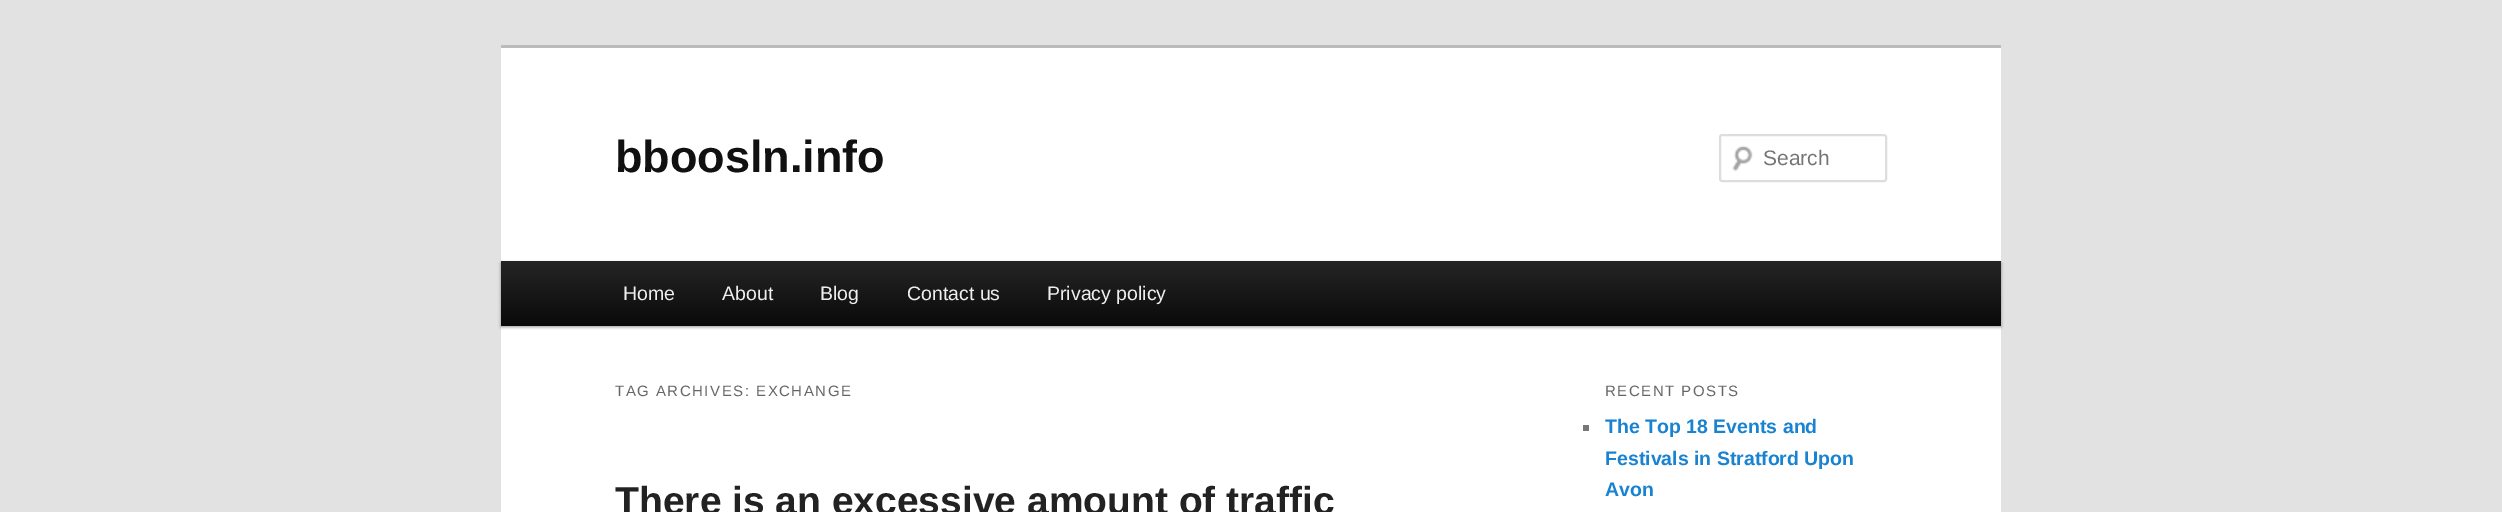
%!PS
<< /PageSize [2502 512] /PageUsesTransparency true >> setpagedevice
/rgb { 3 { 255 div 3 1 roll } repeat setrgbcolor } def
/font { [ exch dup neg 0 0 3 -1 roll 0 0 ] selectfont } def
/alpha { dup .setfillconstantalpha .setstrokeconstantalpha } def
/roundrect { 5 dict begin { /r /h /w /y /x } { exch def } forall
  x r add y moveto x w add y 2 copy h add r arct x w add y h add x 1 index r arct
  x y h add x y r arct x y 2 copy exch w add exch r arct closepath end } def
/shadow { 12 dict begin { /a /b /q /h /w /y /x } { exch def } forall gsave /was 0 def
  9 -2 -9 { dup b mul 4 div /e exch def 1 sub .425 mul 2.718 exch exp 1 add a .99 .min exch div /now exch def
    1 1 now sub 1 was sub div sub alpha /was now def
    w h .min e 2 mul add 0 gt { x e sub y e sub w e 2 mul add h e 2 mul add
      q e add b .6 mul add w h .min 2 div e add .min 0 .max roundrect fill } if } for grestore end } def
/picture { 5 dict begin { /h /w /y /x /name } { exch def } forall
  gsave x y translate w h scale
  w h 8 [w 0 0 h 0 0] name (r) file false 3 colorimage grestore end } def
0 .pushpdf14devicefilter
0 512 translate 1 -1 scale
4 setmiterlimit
226 226 226 rgb
0 0 2502 512 rectfill
255 255 255 rgb
501 48 1500 464 rectfill
187 187 187 rgb
501 45 1500 3 rectfill
(img/1.rgb) 1732 145 21 27 picture
221 221 221 rgb
2 setlinewidth
1720 135 166 46 2 roundrect stroke
0 0 0 rgb
501 263 1500 64 0 1.5 0.4 shadow
gsave 501 261 moveto 2001 261 lineto 2001 326 lineto 501 326 lineto closepath clip newpath
<< /ShadingType 2 /ColorSpace /DeviceRGB /Coords [1251 261 1251 326] /Extend [true true] /Function << /FunctionType 2 /Domain [0 1] /C0 [0.145 0.145 0.145] /C1 [0.039 0.039 0.039] /N 1 >> >> shfill grestore
119 119 119 rgb
1583 425 6 6 rectfill
/LiberationSans-Bold 45 font
17 17 17 rgb
615 172 moveto (bboosln.info) show
/LiberationSans-Regular 21 font
117 117 117 rgb
1763 165 moveto (Search) show
/LiberationSans-Regular 19.5 font
238 238 238 rgb
[
  [(Home) 623 300]
  [(About) 722 300]
  [(Blog) 820 300]
  [(Contact us) 907 300]
  [(Privacy policy) 1047 300]
] { aload pop moveto show } forall
/LiberationSans-Regular 15 font
102 102 102 rgb
615 396 moveto 1.5 0 (TAG ARCHIVES: EXCHANGE) ashow
/LiberationSans-Bold 39 font
34 34 34 rgb
615 514 moveto (There is an excessive amount of traffic) show
/LiberationSans-Regular 15 font
102 102 102 rgb
1605 396 moveto 1.5 0 (RECENT POSTS) ashow
/LiberationSans-Bold 19.5 font
25 130 209 rgb
[
  [(The Top 18 Events and) 1605 433]
  [(Festivals in Stratford Upon) 1605 465]
  [(Avon) 1605 496]
] { aload pop moveto show } forall
.poppdf14devicefilter showpage
